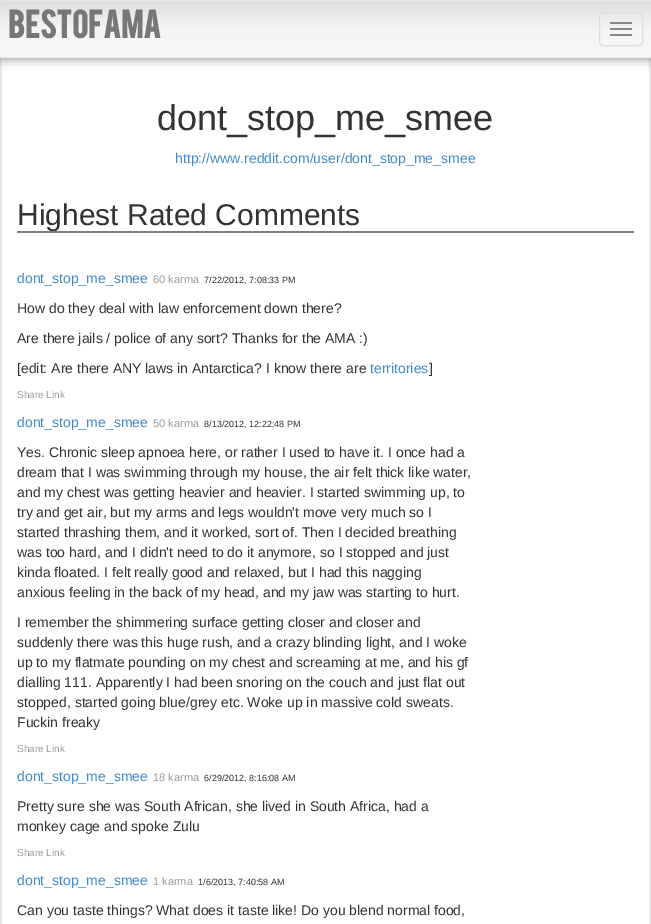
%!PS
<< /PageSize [651 924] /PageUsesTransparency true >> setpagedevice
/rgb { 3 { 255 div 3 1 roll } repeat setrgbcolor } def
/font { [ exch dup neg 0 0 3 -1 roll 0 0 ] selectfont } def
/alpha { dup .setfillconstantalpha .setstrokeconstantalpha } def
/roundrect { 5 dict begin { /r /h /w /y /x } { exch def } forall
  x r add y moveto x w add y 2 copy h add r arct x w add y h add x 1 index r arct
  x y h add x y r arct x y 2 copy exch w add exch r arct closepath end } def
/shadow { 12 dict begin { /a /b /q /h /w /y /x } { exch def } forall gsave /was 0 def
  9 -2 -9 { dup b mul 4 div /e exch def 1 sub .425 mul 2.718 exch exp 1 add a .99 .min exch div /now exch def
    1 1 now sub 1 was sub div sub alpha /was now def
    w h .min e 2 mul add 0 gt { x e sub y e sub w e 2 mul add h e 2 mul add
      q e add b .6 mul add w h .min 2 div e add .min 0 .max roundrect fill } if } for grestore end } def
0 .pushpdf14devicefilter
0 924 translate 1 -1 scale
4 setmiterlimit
255 255 255 rgb
0 0 651 924 rectfill
231 231 231 rgb
0 0 moveto 651 0 lineto 651 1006 lineto 651 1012 647 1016 641 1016 curveto 10 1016 lineto 4 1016 0 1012 0 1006 curveto closepath 2 0 moveto 649 0 lineto 649 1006 lineto 649 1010 645 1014 641 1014 curveto 10 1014 lineto 6 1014 2 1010 2 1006 curveto closepath eofill
136 136 136 rgb
-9 -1 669 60 0 5 1 shadow
gsave 0 1 moveto 651 1 lineto 651 57 lineto 0 57 lineto closepath clip newpath
<< /ShadingType 2 /ColorSpace /DeviceRGB /Coords [-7 1 -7 57] /Extend [true true] /Function << /FunctionType 3 /Domain [0 1] /Functions [<< /FunctionType 2 /Domain [0 1] /C0 [0.871 0.871 0.871] /C1 [0.961 0.961 0.961] /N 1 >> << /FunctionType 2 /Domain [0 1] /C0 [0.961 0.961 0.961] /C1 [0.973 0.973 0.973] /N 1 >>] /Bounds [0.5] /Encode [0 1 0 1] >> >> shfill grestore
231 231 231 rgb
-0.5 0.5 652 57 rectstroke
221 221 221 rgb
599.5 12.5 43 33 3.5 roundrect stroke
136 136 136 rgb
610 22 22 2 1 roundrect fill
610 28 22 2 1 roundrect fill
610 34 22 2 1 roundrect fill
/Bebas-Bold 31 font
119 119 119 rgb
8 38 moveto (BestofAMA) show
/LiberationSans-Regular 36 font
51 51 51 rgb
157 130 moveto (dont_stop_me_smee) show
/LiberationSans-Regular 14 font
66 139 202 rgb
175 163 moveto (http://www.reddit.com/user/dont_stop_me_smee) show
/LiberationSans-Regular 30 font
51 51 51 rgb
17 225 moveto (Highest Rated Comments) show
128 128 128 rgb
17 231 617 2 rectfill
/LiberationSans-Regular 14 font
66 139 202 rgb
17 283 moveto (dont_stop_me_smee) show
/LiberationSans-Regular 11 font
153 153 153 rgb
153 283 moveto (60 karma) show
/LiberationSans-Regular 9 font
51 51 51 rgb
204 283 moveto (7/22/2012, 7:08:33 PM) show
/LiberationSans-Regular 14 font
[
  [(How do they deal with law enforcement down there?) 17 313]
  [(Are there jails / police of any sort? Thanks for the AMA :\)) 17 343]
  [([edit: Are there ANY laws in Antarctica? I know there are) 17 373]
] { aload pop moveto show } forall
66 139 202 rgb
370 373 moveto (territories) show
51 51 51 rgb
429 373 moveto (]) show
/LiberationSans-Regular 10 font
153 153 153 rgb
17 398 moveto (Share Link) show
/LiberationSans-Regular 14 font
66 139 202 rgb
17 427 moveto (dont_stop_me_smee) show
/LiberationSans-Regular 11 font
153 153 153 rgb
153 427 moveto (50 karma) show
/LiberationSans-Regular 9 font
51 51 51 rgb
204 427 moveto (8/13/2012, 12:22:48 PM) show
/LiberationSans-Regular 14 font
[
  [(Yes. Chronic sleep apnoea here, or rather I used to have it. I once had a) 17 457]
  [(dream that I was swimming through my house, the air felt thick like water,) 17 477]
  [(and my chest was getting heavier and heavier. I started swimming up, to) 17 497]
  [(try and get air, but my arms and legs wouldn't move very much so I) 17 517]
  [(started thrashing them, and it worked, sort of. Then I decided breathing) 17 537]
  [(was too hard, and I didn't need to do it anymore, so I stopped and just) 17 557]
  [(kinda floated. I felt really good and relaxed, but I had this nagging) 17 577]
  [(anxious feeling in the back of my head, and my jaw was starting to hurt.) 17 597]
  [(I remember the shimmering surface getting closer and closer and) 17 627]
  [(suddenly there was this huge rush, and a crazy blinding light, and I woke) 17 647]
  [(up to my flatmate pounding on my chest and screaming at me, and his gf) 17 667]
  [(dialling 111. Apparently I had been snoring on the couch and just flat out) 17 687]
  [(stopped, started going blue/grey etc. Woke up in massive cold sweats.) 17 707]
  [(Fuckin freaky) 17 727]
] { aload pop moveto show } forall
/LiberationSans-Regular 10 font
153 153 153 rgb
17 752 moveto (Share Link) show
/LiberationSans-Regular 14 font
66 139 202 rgb
17 781 moveto (dont_stop_me_smee) show
/LiberationSans-Regular 11 font
153 153 153 rgb
153 781 moveto (18 karma) show
/LiberationSans-Regular 9 font
51 51 51 rgb
204 781 moveto (6/29/2012, 8:16:08 AM) show
/LiberationSans-Regular 14 font
17 811 moveto (Pretty sure she was South African, she lived in South Africa, had a) show
17 831 moveto (monkey cage and spoke Zulu) show
/LiberationSans-Regular 10 font
153 153 153 rgb
17 856 moveto (Share Link) show
/LiberationSans-Regular 14 font
66 139 202 rgb
17 885 moveto (dont_stop_me_smee) show
/LiberationSans-Regular 11 font
153 153 153 rgb
153 885 moveto (1 karma) show
/LiberationSans-Regular 9 font
51 51 51 rgb
198 885 moveto (1/6/2013, 7:40:58 AM) show
/LiberationSans-Regular 14 font
17 915 moveto (Can you taste things? What does it taste like! Do you blend normal food,) show
.poppdf14devicefilter showpage
